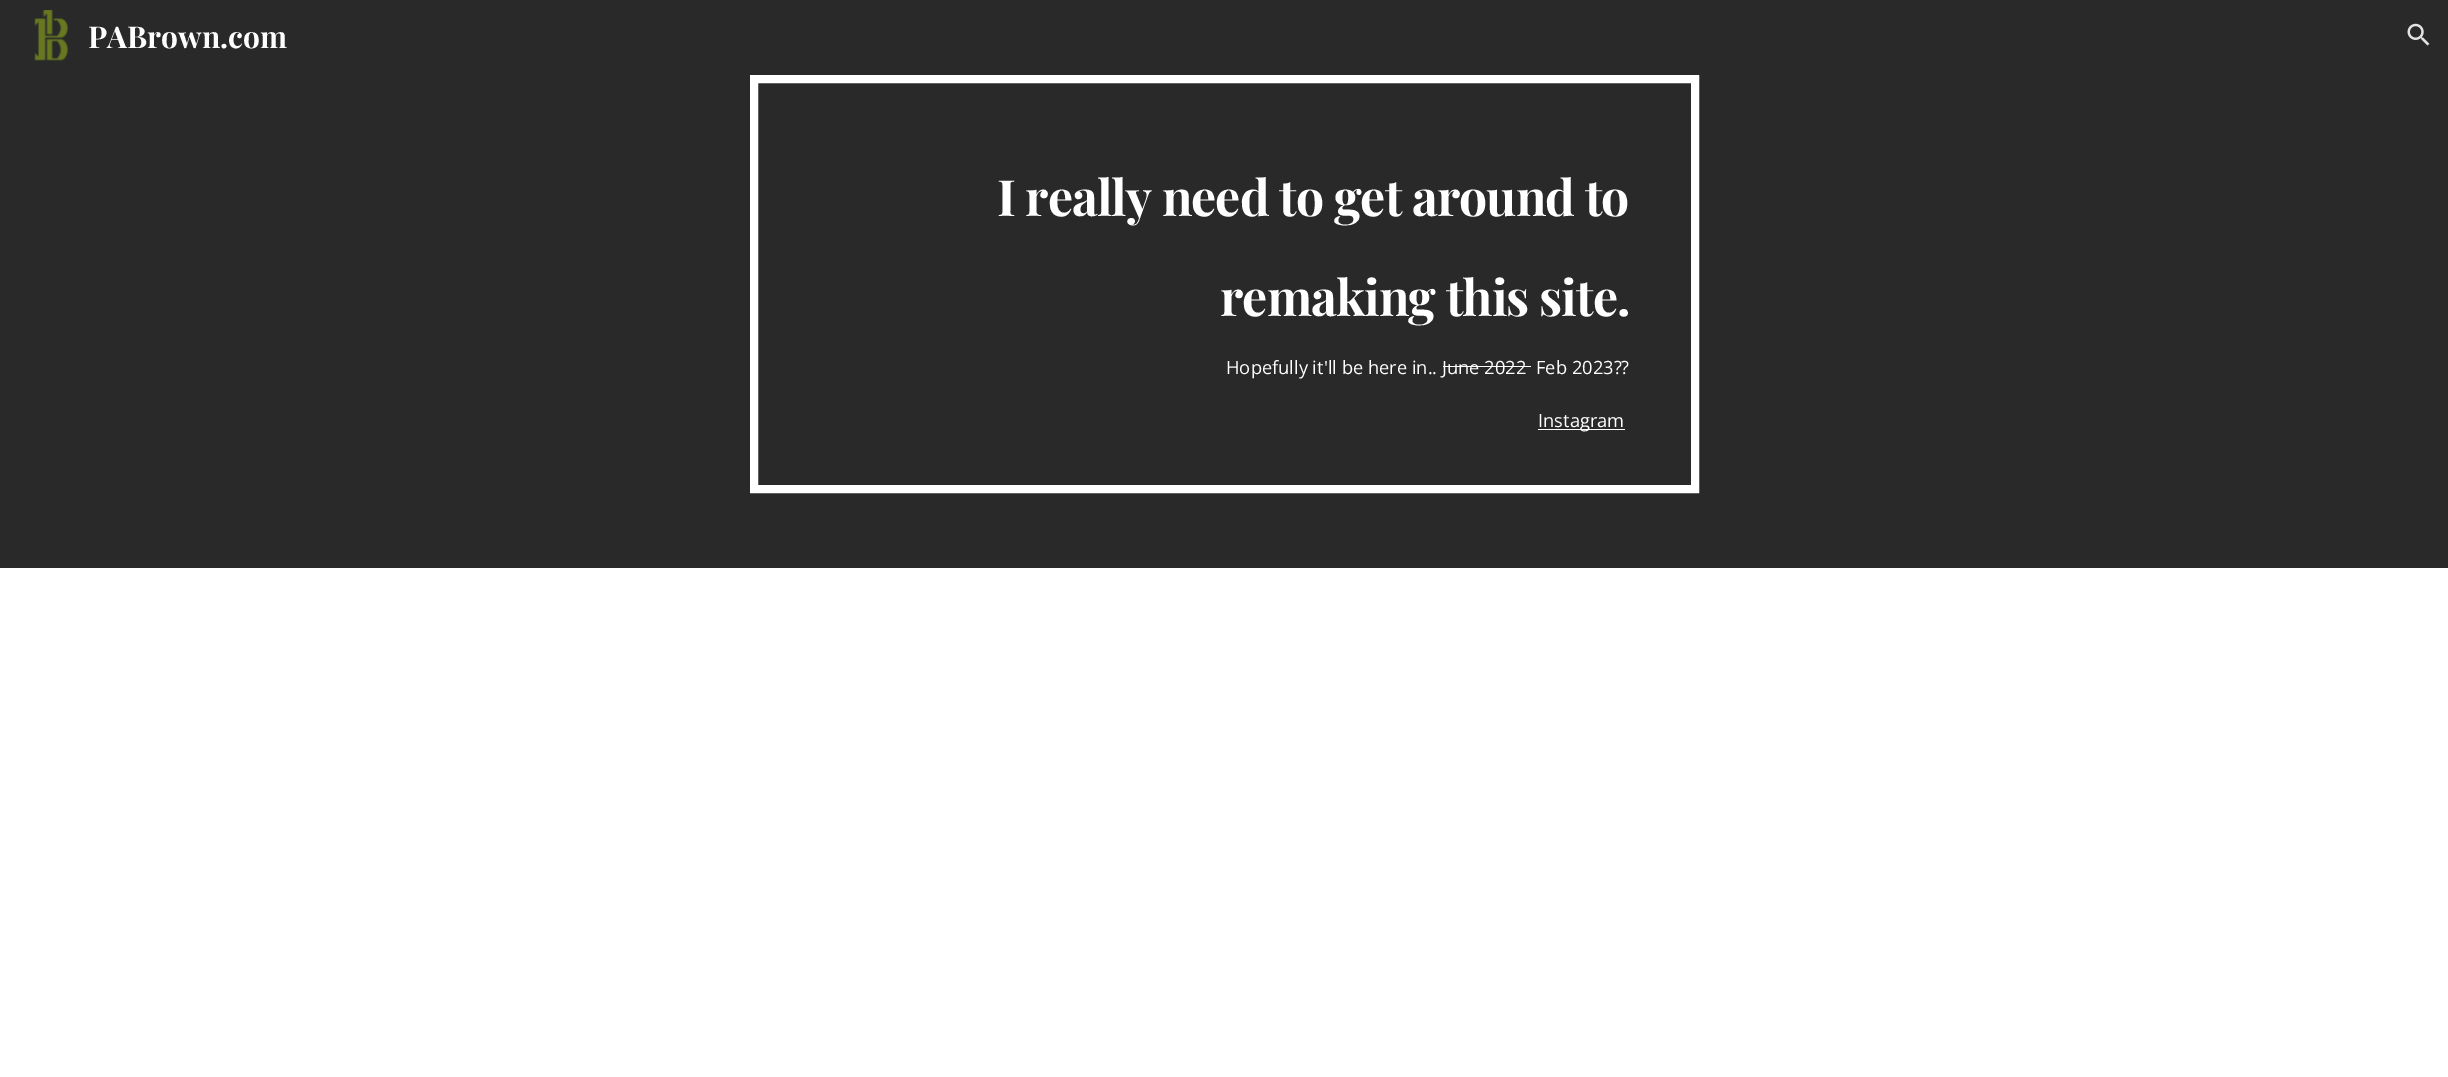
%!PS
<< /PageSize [2448 1077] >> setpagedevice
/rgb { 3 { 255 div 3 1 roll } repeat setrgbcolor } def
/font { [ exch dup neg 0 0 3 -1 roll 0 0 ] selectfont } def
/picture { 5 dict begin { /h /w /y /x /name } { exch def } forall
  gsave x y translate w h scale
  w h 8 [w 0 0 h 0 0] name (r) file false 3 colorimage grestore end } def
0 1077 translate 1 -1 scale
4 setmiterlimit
255 255 255 rgb
0 0 2448 1077 rectfill
41 41 42 rgb
0 0 2448 568 rectfill
(img/1.rgb) 34 10 34 51 picture
(img/2.rgb) 2407 23 23 23 picture
255 255 255 rgb
8 setlinewidth
754 79 941 410 rectstroke
1443 366 88 1 rectfill
1538 429 87 1 rectfill
/PlayfairDisplay-Bold 30 font
88 48 moveto (PABrown.com) show
/PlayfairDisplay-Bold 50 font
997 216 moveto -1 0 (I really need to get around to) ashow
1220 316 moveto -1 0 (remaking this site.) ashow
/OpenSans-Regular 18.3 font
[
  [(Hopefully it'll be here in.. June 2022) 1226 374]
  [(Feb 2023??) 1536 374]
  [(Instagram) 1538 427]
] { aload pop moveto show } forall
showpage
